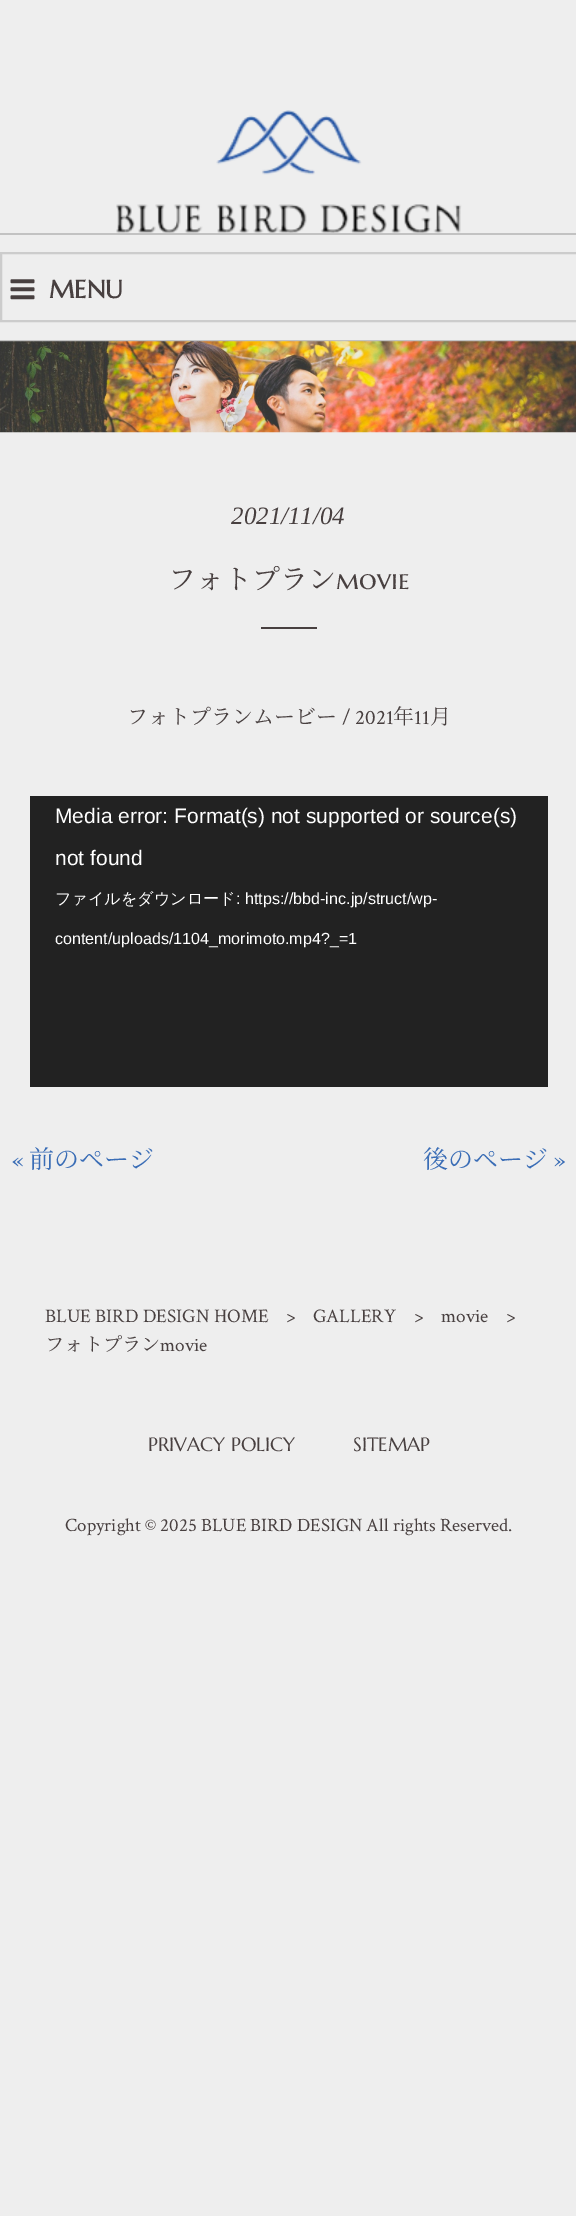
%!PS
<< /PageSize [576 2216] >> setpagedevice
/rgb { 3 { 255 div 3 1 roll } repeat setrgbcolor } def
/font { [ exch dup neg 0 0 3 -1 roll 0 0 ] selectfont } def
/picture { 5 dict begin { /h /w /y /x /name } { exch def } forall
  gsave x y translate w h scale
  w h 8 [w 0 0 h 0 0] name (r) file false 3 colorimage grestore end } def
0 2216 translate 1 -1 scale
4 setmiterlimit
238 238 238 rgb
0 0 576 2216 rectfill
(img/1.rgb) 116 110 346 123 picture
194 194 194 rgb
0 233 576 2 rectfill
0 340 576 2 rectfill
204 204 204 rgb
2 setlinewidth
1 253 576 68 rectstroke
(img/2.rgb) 10 279 25 21 picture
(img/3.rgb) 0 341 576 92 picture
72 64 64 rgb
261 627 56 2 rectfill
34 34 34 rgb
30 796 518 291 rectfill
/MarcellusSC-Bold 25 font
72 64 64 rgb
49 298 moveto (MENU) show
/LiberationSerif-Italic 25 font
231 524 moveto (2021/11/04) show
/NotoSerifJP-ExtraLight 28 font
168 589 moveto (フォトプラン) show
/MarcellusSC-Regular 28 font
336 589 moveto (movie) show
/NotoSerifJP-ExtraLight 21 font
127 724 moveto (フォトプランムービー) show
/CrimsonText-Regular 21 font
342 724 moveto (/ 2021) show
/NotoSerifJP-ExtraLight 21 font
393 724 moveto (年) show
/CrimsonText-Regular 21 font
414 724 moveto (11) show
/NotoSerifJP-ExtraLight 21 font
430 724 moveto (月) show
/LiberationSans-Regular 21 font
255 255 255 rgb
55 823 moveto (Media error: Format\(s\) not supported or source\(s\)) show
55 865 moveto (not found) show
/WenQuanYiZenHei-Medium 16.1 font
55 904 moveto (ファイルをダウンロード) show
/LiberationSans-Regular 16.1 font
236 904 moveto (: https://bbd-inc.jp/struct/wp-) show
55 944 moveto (content/uploads/1104_morimoto.mp4?_=1) show
/CrimsonText-Regular 25 font
58 109 182 rgb
12 1168 moveto («) show
/NotoSerifJP-ExtraLight 25 font
29 1168 moveto (前のページ) show
423 1168 moveto (後のページ) show
/CrimsonText-Regular 25 font
554 1168 moveto (») show
/CrimsonText-Regular 19.25 font
72 64 64 rgb
[
  [(BLUE BIRD DESIGN HOME) 45 1322]
  [(>) 286 1322]
  [(GALLERY) 313 1322]
  [(>) 414 1322]
  [(movie) 441 1322]
  [(>) 506 1322]
] { aload pop moveto show } forall
/NotoSerifJP-ExtraLight 19.25 font
45 1351 moveto (フォトプラン) show
/CrimsonText-Regular 19.25 font
160 1351 moveto (movie) show
/MarcellusSC-Regular 19.25 font
148 1451 moveto (PRIVACY POLICY) show
353 1451 moveto (SITEMAP) show
/CrimsonText-Regular 18.9 font
65 1531 moveto (Copyright © 2025 BLUE BIRD DESIGN All rights Reserved.) show
showpage
